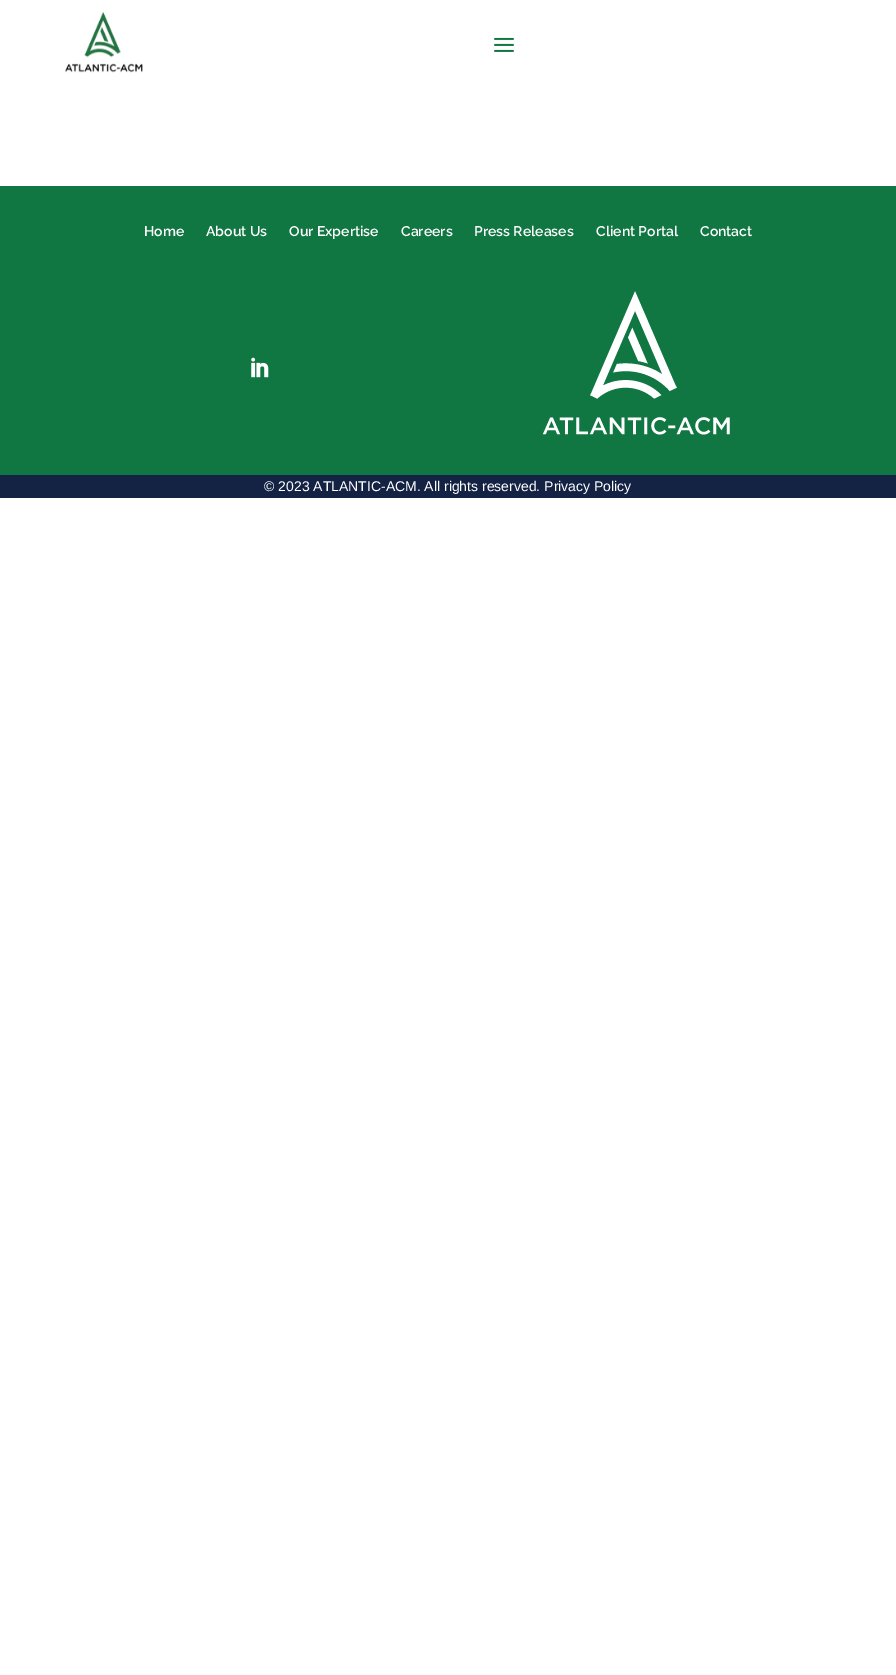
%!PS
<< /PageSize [896 1675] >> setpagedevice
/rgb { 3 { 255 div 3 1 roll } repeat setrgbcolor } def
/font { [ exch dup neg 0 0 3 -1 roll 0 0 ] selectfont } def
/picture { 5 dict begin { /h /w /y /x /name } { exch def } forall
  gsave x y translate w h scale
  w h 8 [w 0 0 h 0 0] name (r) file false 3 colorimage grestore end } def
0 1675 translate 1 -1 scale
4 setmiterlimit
255 255 255 rgb
0 0 896 1675 rectfill
(img/1.rgb) 65 11 78 62 picture
(img/2.rgb) 494 37 20 15 picture
16 118 66 rgb
0 186 896 289 rectfill
(img/3.rgb) 251 357 18 21 picture
(img/4.rgb) 542 291 188 144 picture
20 35 68 rgb
0 475 896 23 rectfill
/Raleway-SemiBold 14 font
255 255 255 rgb
[
  [(Home) 144 236]
  [(About Us) 206 236]
  [(Our Expertise) 289 236]
  [(Careers) 401 236]
  [(Press Releases) 474 236]
  [(Client Portal) 596 236]
  [(Contact) 700 236]
] { aload pop moveto show } forall
/LiberationSans-Regular 14 font
264 491 moveto (© 2023 ATLANTIC-ACM. All rights reserved. Privacy Policy) show
showpage
